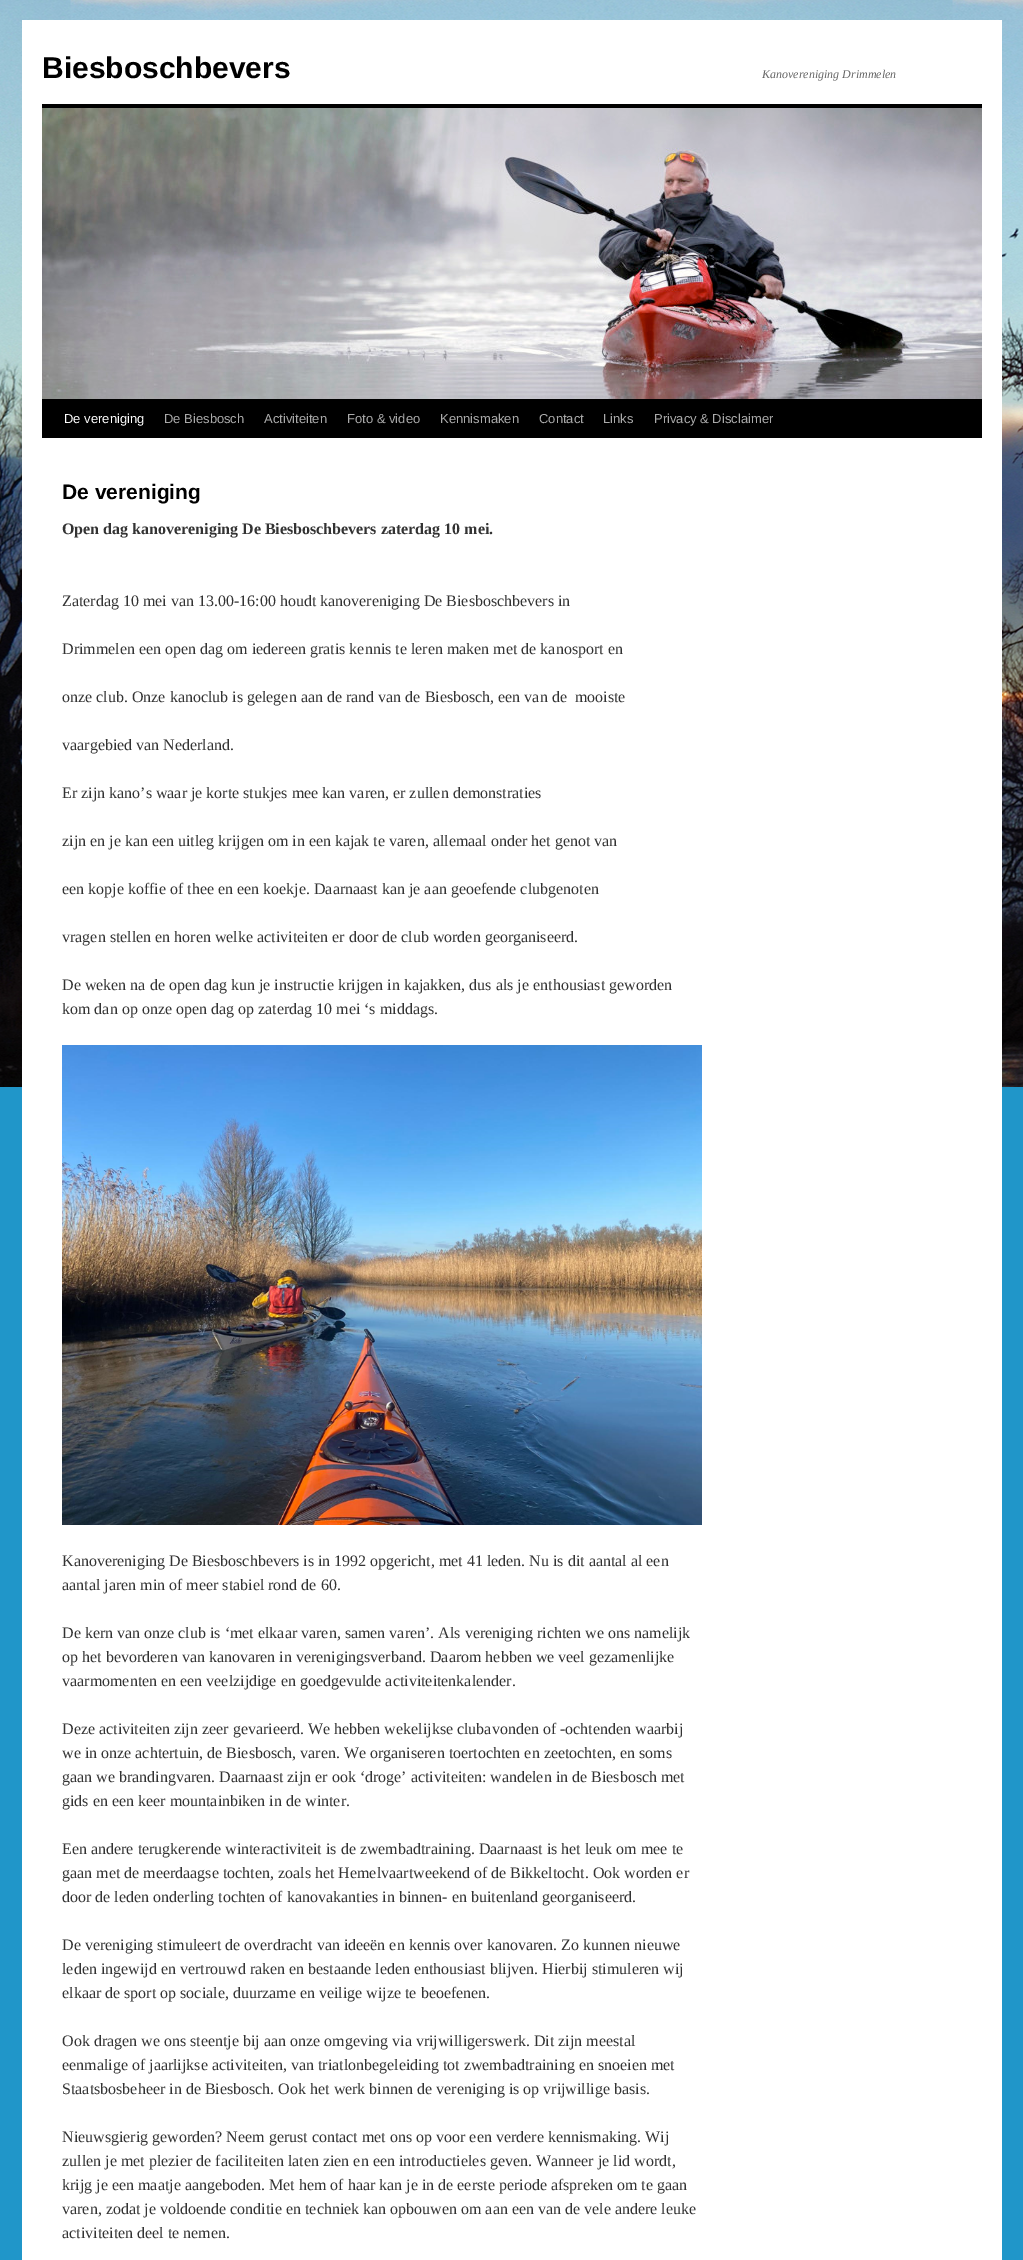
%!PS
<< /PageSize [1023 2260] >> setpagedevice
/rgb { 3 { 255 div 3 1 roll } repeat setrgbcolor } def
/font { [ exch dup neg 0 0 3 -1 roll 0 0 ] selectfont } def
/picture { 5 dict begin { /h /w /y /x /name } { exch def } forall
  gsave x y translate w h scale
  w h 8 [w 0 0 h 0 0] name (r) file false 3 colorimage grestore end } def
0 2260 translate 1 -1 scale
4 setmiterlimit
32 150 201 rgb
0 0 1023 2260 rectfill
(img/1.rgb) 0 0 1023 1087 picture
[
  [22 20 980 2240 255 255 255]
  [42 104 940 4 0 0 0]
  [42 399 940 39 0 0 0]
] { aload pop rgb rectfill } forall
(img/2.rgb) 42 108 940 291 picture
(img/3.rgb) 62 1045 640 480 picture
/LiberationSans-Bold 30 font
42 78 moveto (Biesboschbevers) show
/LiberationSerif-Italic 12 font
102 102 102 rgb
762 78 moveto (Kanovereniging Drimmelen) show
/LiberationSans-Regular 13 font
255 255 255 rgb
64 423 moveto (De vereniging) show
170 170 170 rgb
[
  [(De Biesbosch) 164 423]
  [(Activiteiten) 264 423]
  [(Foto & video) 347 423]
  [(Kennismaken) 440 423]
  [(Contact) 539 423]
  [(Links) 603 423]
  [(Privacy & Disclaimer) 654 423]
] { aload pop moveto show } forall
/LiberationSans-Bold 21 font
0 0 0 rgb
62 499 moveto (De vereniging) show
/LiberationSerif-Bold 16 font
51 51 51 rgb
62 534 moveto (Open dag kanovereniging De Biesboschbevers zaterdag 10 mei.) show
/LiberationSerif-Regular 16 font
[
  [(Zaterdag 10 mei van 13.00-16:00 houdt kanovereniging De Biesboschbevers in) 62 606]
  [(Drimmelen een open dag om iedereen gratis kennis te leren maken met de kanosport en) 62 654]
  [(onze club. Onze kanoclub is gelegen aan de rand van de Biesbosch, een van de  mooiste) 62 702]
  [(vaargebied van Nederland.) 62 750]
  [(Er zijn kano’s waar je korte stukjes mee kan varen, er zullen demonstraties) 62 798]
  [(zijn en je kan een uitleg krijgen om in een kajak te varen, allemaal onder het genot van) 62 846]
  [(een kopje koffie of thee en een koekje. Daarnaast kan je aan geoefende clubgenoten) 62 894]
  [(vragen stellen en horen welke activiteiten er door de club worden georganiseerd.) 62 942]
  [(De weken na de open dag kun je instructie krijgen in kajakken, dus als je enthousiast geworden) 62 990]
  [(kom dan op onze open dag op zaterdag 10 mei ‘s middags.) 62 1014]
  [(Kanovereniging De Biesboschbevers is in 1992 opgericht, met 41 leden. Nu is dit aantal al een) 62 1566]
  [(aantal jaren min of meer stabiel rond de 60.) 62 1590]
  [(De kern van onze club is ‘met elkaar varen, samen varen’. Als vereniging richten we ons namelijk) 62 1638]
  [(op het bevorderen van kanovaren in verenigingsverband. Daarom hebben we veel gezamenlijke) 62 1662]
  [(vaarmomenten en een veelzijdige en goedgevulde activiteitenkalender.) 62 1686]
  [(Deze activiteiten zijn zeer gevarieerd. We hebben wekelijkse clubavonden of -ochtenden waarbij) 62 1734]
  [(we in onze achtertuin, de Biesbosch, varen. We organiseren toertochten en zeetochten, en soms) 62 1758]
  [(gaan we brandingvaren. Daarnaast zijn er ook ‘droge’ activiteiten: wandelen in de Biesbosch met) 62 1782]
  [(gids en een keer mountainbiken in de winter.) 62 1806]
  [(Een andere terugkerende winteractiviteit is de zwembadtraining. Daarnaast is het leuk om mee te) 62 1854]
  [(gaan met de meerdaagse tochten, zoals het Hemelvaartweekend of de Bikkeltocht. Ook worden er) 62 1878]
  [(door de leden onderling tochten of kanovakanties in binnen- en buitenland georganiseerd.) 62 1902]
  [(De vereniging stimuleert de overdracht van ideeën en kennis over kanovaren. Zo kunnen nieuwe) 62 1950]
  [(leden ingewijd en vertrouwd raken en bestaande leden enthousiast blijven. Hierbij stimuleren wij) 62 1974]
  [(elkaar de sport op sociale, duurzame en veilige wijze te beoefenen.) 62 1998]
  [(Ook dragen we ons steentje bij aan onze omgeving via vrijwilligerswerk. Dit zijn meestal) 62 2046]
  [(eenmalige of jaarlijkse activiteiten, van triatlonbegeleiding tot zwembadtraining en snoeien met) 62 2070]
  [(Staatsbosbeheer in de Biesbosch. Ook het werk binnen de vereniging is op vrijwillige basis.) 62 2094]
  [(Nieuwsgierig geworden? Neem gerust contact met ons op voor een verdere kennismaking. Wij) 62 2142]
  [(zullen je met plezier de faciliteiten laten zien en een introductieles geven. Wanneer je lid wordt,) 62 2166]
  [(krijg je een maatje aangeboden. Met hem of haar kan je in de eerste periode afspreken om te gaan) 62 2190]
  [(varen, zodat je voldoende conditie en techniek kan opbouwen om aan een van de vele andere leuke) 62 2214]
  [(activiteiten deel te nemen.) 62 2238]
] { aload pop moveto show } forall
showpage
